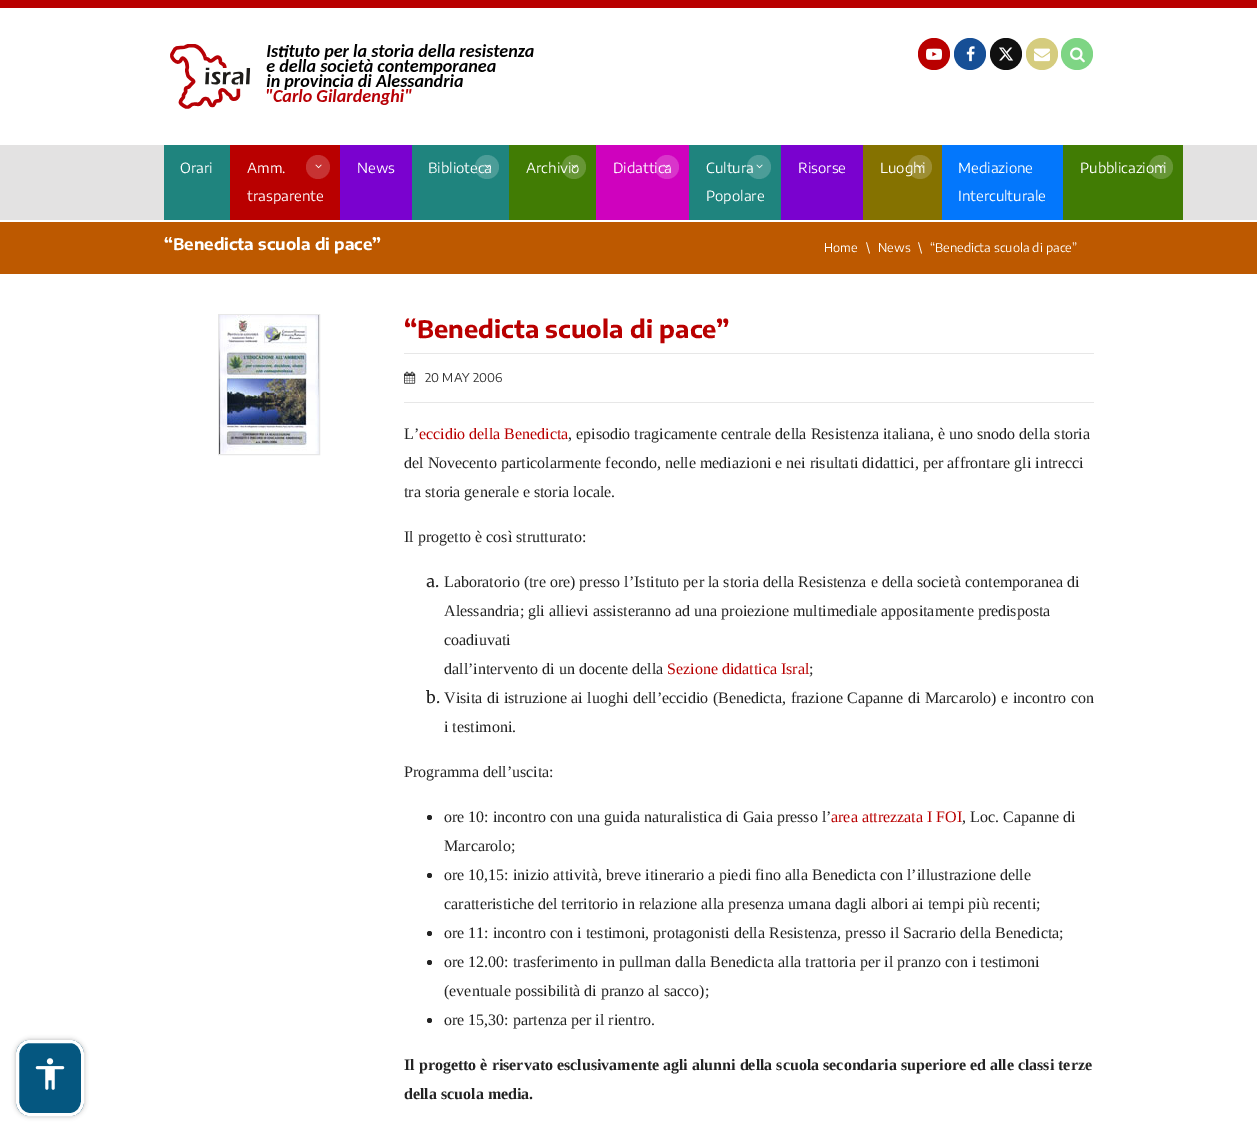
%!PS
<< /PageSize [1257 1132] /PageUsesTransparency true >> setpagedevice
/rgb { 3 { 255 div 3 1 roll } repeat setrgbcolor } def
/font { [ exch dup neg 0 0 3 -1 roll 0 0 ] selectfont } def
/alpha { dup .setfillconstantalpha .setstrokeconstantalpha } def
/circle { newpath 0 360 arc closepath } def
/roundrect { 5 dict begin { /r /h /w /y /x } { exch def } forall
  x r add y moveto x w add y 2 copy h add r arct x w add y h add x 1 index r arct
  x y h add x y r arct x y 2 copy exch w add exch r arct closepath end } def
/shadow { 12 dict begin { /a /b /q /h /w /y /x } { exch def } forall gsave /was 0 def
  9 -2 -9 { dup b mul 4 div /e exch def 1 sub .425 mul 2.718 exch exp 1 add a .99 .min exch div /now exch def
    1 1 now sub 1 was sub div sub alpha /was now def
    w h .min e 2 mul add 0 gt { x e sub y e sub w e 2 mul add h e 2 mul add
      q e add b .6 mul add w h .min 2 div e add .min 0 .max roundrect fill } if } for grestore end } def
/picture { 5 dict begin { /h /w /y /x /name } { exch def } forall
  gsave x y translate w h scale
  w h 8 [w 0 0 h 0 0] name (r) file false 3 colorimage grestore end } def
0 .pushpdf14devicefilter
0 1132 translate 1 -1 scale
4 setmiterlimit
255 255 255 rgb
0 0 1257 1132 rectfill
185 0 0 rgb
0 0 1257 8 rectfill
(img/1.rgb) 170 44 364 65 picture
934 54 16 circle fill
(img/2.rgb) 926 48 16 12 picture
22 79 150 rgb
970 54 16 circle fill
(img/3.rgb) 966 46 9 16 picture
16 16 16 rgb
1006 54 16 circle fill
(img/4.rgb) 999 47 15 14 picture
213 204 126 rgb
1042 54 16 circle fill
(img/5.rgb) 1034 48 16 14 picture
126 213 132 rgb
1077 54 16 circle fill
(img/6.rgb) 1070 47 15 16 picture
[
  [0 145 1257 75 227 226 226]
  [230 145 110 75 185 0 0]
  [164 145 66 75 31 132 126]
] { aload pop rgb rectfill } forall
199 51 51 rgb
318 167 12 circle fill
(img/7.rgb) 315 164 7 5 picture
[
  [340 145 72 75 122 2 207]
  [412 145 97 75 31 132 126]
  [509 145 87 75 65 124 4]
  [596 145 93 75 207 2 190]
  [689 145 92 75 31 132 126]
  [781 145 82 75 122 2 207]
  [863 145 79 75 133 114 0]
  [942 145 121 75 3 119 252]
  [1063 145 120 75 65 124 4]
  [0 222 1257 52 189 89 0]
] { aload pop rgb rectfill } forall
0 0 0 rgb
16 1040 68 76 14 2.5 0.3 shadow
5 87 128 rgb
30 1040 moveto 70 1040 lineto 78 1040 84 1047 84 1055 curveto 84 1101 lineto 84 1109 78 1116 70 1116 curveto 30 1116 lineto 22 1116 16 1109 16 1101 curveto 16 1055 lineto 16 1047 22 1040 30 1040 curveto closepath fill
255 255 255 rgb
3 setlinewidth
29.5 1041.5 moveto 70.5 1041.5 lineto 77 1041.5 82.5 1047.5 82.5 1055 curveto 82.5 1101 lineto 82.5 1108.5 77 1114.5 70.5 1114.5 curveto 29.5 1114.5 lineto 23 1114.5 17.5 1108.5 17.5 1101 curveto 17.5 1055 lineto 17.5 1047.5 23 1041.5 29.5 1041.5 curveto closepath stroke
(img/14.rgb) 35 1058 30 32 picture
231 231 231 rgb
1 setlinewidth
218.5 314.5 101 140 rectstroke
(img/15.rgb) 219 315 100 139 picture
404 353 690 1 rectfill
404 402 690 1 rectfill
(img/16.rgb) 404 371 12 13 picture
36 36 36 rgb
429.5 817.5 2.5 circle fill
429.5 875.5 2.5 circle fill
429.5 933.5 2.5 circle fill
429.5 962.5 2.5 circle fill
429.5 1020.5 2.5 circle fill
/EncodeSansSemiExpanded-Regular 14 font
255 255 255 rgb
[
  [(Orari) 180 173]
  [(Amm.) 247 173]
  [(trasparente) 247 201]
  [(News) 357 173]
  [(Biblioteca) 428 173]
] { aload pop moveto show } forall
0.2 alpha
487 167 12 circle fill
1 alpha
(img/8.rgb) 484 164 7 5 picture
526 173 moveto (Archivio) show
0.2 alpha
574 167 12 circle fill
1 alpha
(img/9.rgb) 571 164 7 5 picture
613 173 moveto (Didattica) show
0.2 alpha
667 167 12 circle fill
1 alpha
(img/10.rgb) 663 164 7 5 picture
706 173 moveto (Cultura) show
0.2 alpha
759 167 12 circle fill
1 alpha
(img/11.rgb) 756 164 7 5 picture
[
  [(Popolare) 706 201]
  [(Risorse) 798 173]
  [(Luoghi) 880 173]
] { aload pop moveto show } forall
0.2 alpha
920 167 12 circle fill
1 alpha
(img/12.rgb) 916 164 7 4 picture
[
  [(Mediazione) 958 173]
  [(Interculturale) 958 201]
  [(Pubblicazioni) 1080 173]
] { aload pop moveto show } forall
0.2 alpha
1161 167 12 circle fill
1 alpha
(img/13.rgb) 1157 164 7 4 picture
/EncodeSansSemiExpanded-Bold 16 font
164 250 moveto (“Benedicta scuola di pace”) show
/EncodeSansSemiExpanded-Regular 12 font
[
  [(Home) 824 252]
  [(\\) 866 252]
  [(News) 878 252]
  [(\\) 918 252]
  [(“Benedicta scuola di pace”) 930 252]
] { aload pop moveto show } forall
/EncodeSansSemiExpanded-Bold 24 font
185 0 0 rgb
404 338 moveto (“Benedicta scuola di pace”) show
/EncodeSansSemiExpanded-Regular 12 font
51 51 51 rgb
425 382 moveto (20 MAY 2006) show
/LiberationSerif-Regular 16 font
36 36 36 rgb
404 439 moveto (L’) show
185 0 0 rgb
419 439 moveto (eccidio della Benedicta) show
36 36 36 rgb
[
  [(, episodio tragicamente centrale della Resistenza italiana, è uno snodo della storia) 568 439]
  [(del Novecento particolarmente fecondo, nelle mediazioni e nei risultati didattici, per affrontare gli intrecci) 404 468]
  [(tra storia generale e storia locale.) 404 497]
  [(Il progetto è così strutturato:) 404 542]
] { aload pop moveto show } forall
/Merriweather-Regular 16 font
426 587 moveto (a.) show
/LiberationSerif-Regular 16 font
[
  [(Laboratorio \(tre ore\) presso l’Istituto per la storia della Resistenza e della società contemporanea di) 444 587]
  [(Alessandria; gli allievi assisteranno ad una proiezione multimediale appositamente predisposta) 444 616]
  [(coadiuvati) 444 645]
  [(dall’intervento di un docente della) 444 674]
] { aload pop moveto show } forall
185 0 0 rgb
667 674 moveto (Sezione didattica Isral) show
36 36 36 rgb
809 674 moveto (;) show
/Merriweather-Regular 16 font
426 703 moveto (b.) show
/LiberationSerif-Regular 16 font
444 703 moveto 0.5 0 32 (Visita di istruzione ai luoghi dell’eccidio \(Benedicta, frazione Capanne di Marcarolo\) e incontro con) widthshow
[
  [(i testimoni.) 444 732]
  [(Programma dell’uscita:) 404 777]
  [(ore 10: incontro con una guida naturalistica di Gaia presso l’) 444 822]
] { aload pop moveto show } forall
185 0 0 rgb
831 822 moveto (area attrezzata I FOI) show
36 36 36 rgb
[
  [(, Loc. Capanne di) 962 822]
  [(Marcarolo;) 444 851]
  [(ore 10,15: inizio attività, breve itinerario a piedi fino alla Benedicta con l’illustrazione delle) 444 880]
  [(caratteristiche del territorio in relazione alla presenza umana dagli albori ai tempi più recenti;) 444 909]
  [(ore 11: incontro con i testimoni, protagonisti della Resistenza, presso il Sacrario della Benedicta;) 444 938]
  [(ore 12.00: trasferimento in pullman dalla Benedicta alla trattoria per il pranzo con i testimoni) 444 967]
  [(\(eventuale possibilità di pranzo al sacco\);) 444 996]
  [(ore 15,30: partenza per il rientro.) 444 1025]
] { aload pop moveto show } forall
/LiberationSerif-Bold 16 font
404 1070 moveto (Il progetto è riservato esclusivamente agli alunni della scuola secondaria superiore ed alle classi terze) show
404 1099 moveto (della scuola media.) show
.poppdf14devicefilter showpage
